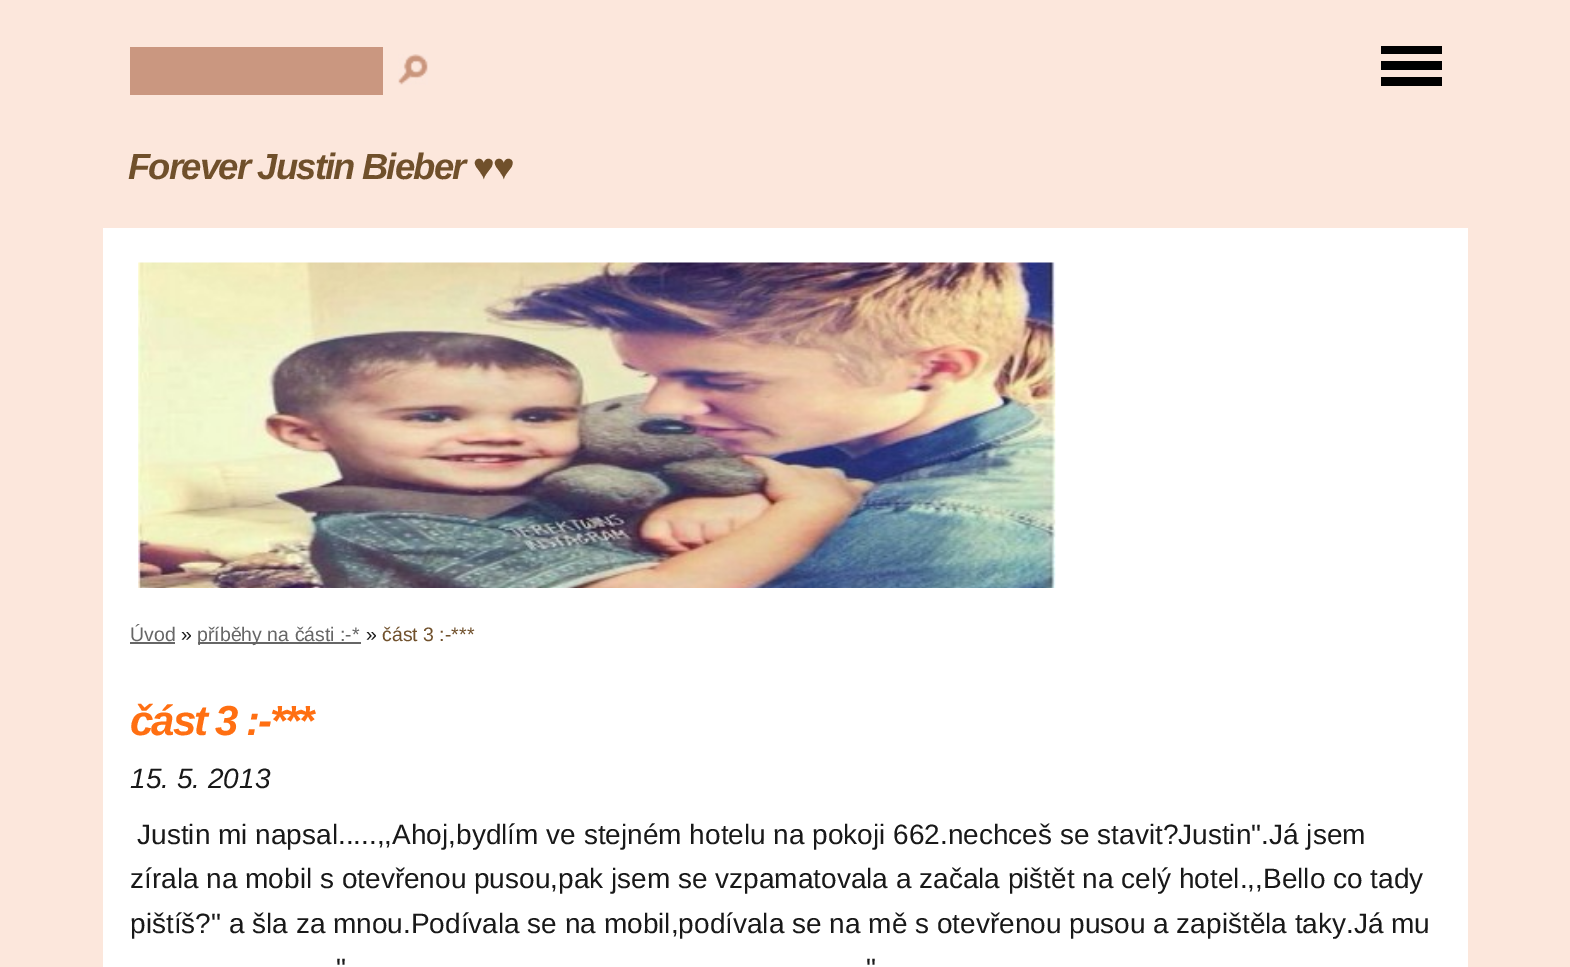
%!PS
<< /PageSize [1570 967] >> setpagedevice
/rgb { 3 { 255 div 3 1 roll } repeat setrgbcolor } def
/font { [ exch dup neg 0 0 3 -1 roll 0 0 ] selectfont } def
/picture { 5 dict begin { /h /w /y /x /name } { exch def } forall
  gsave x y translate w h scale
  w h 8 [w 0 0 h 0 0] name (r) file false 3 colorimage grestore end } def
0 967 translate 1 -1 scale
4 setmiterlimit
252 231 220 rgb
0 0 1570 967 rectfill
255 255 255 rgb
103 228 1365 739 rectfill
202 151 128 rgb
130 47 253 48 rectfill
(img/1.rgb) 398 54 30 31 picture
[
  [1381 46 61 8 0 0 0]
  [1381 61 61 9 0 0 0]
  [1381 77 61 9 0 0 0]
] { aload pop rgb rectfill } forall
(img/2.rgb) 138 262 918 326 picture
102 102 102 rgb
130 642 45 2 rectfill
198 642 163 2 rectfill
/LiberationSans-BoldItalic 36.4 font
112 80 43 rgb
128 179 moveto -1.8 0 (Forever Justin Bieber ♥♥) ashow
/LiberationSans-Regular 19.5 font
102 102 102 rgb
130 641 moveto (Úvod) show
25 25 25 rgb
181 641 moveto (») show
102 102 102 rgb
197 641 moveto (příběhy na části :-*) show
25 25 25 rgb
366 641 moveto (») show
112 80 43 rgb
382 641 moveto (část 3 :-***) show
/LiberationSans-BoldItalic 42 font
255 111 18 rgb
130 735 moveto -2.1 0 (část 3 :-***) ashow
/LiberationSans-Italic 28 font
25 25 25 rgb
130 788 moveto (15. 5. 2013) show
/LiberationSans-Regular 28 font
[
  [(Justin mi napsal.....,,Ahoj,bydlím ve stejném hotelu na pokoji 662.nechceš se stavit?Justin".Já jsem) 137 844]
  [(zírala na mobil s otevřenou pusou,pak jsem se vzpamatovala a začala pištět na celý hotel.,,Bello co tady) 130 888]
  [(pištíš?" a šla za mnou.Podívala se na mobil,podívala se na mě s otevřenou pusou a zapištěla taky.Já mu) 130 933]
  [(") 336 978]
  [(") 866 978]
] { aload pop moveto show } forall
showpage
